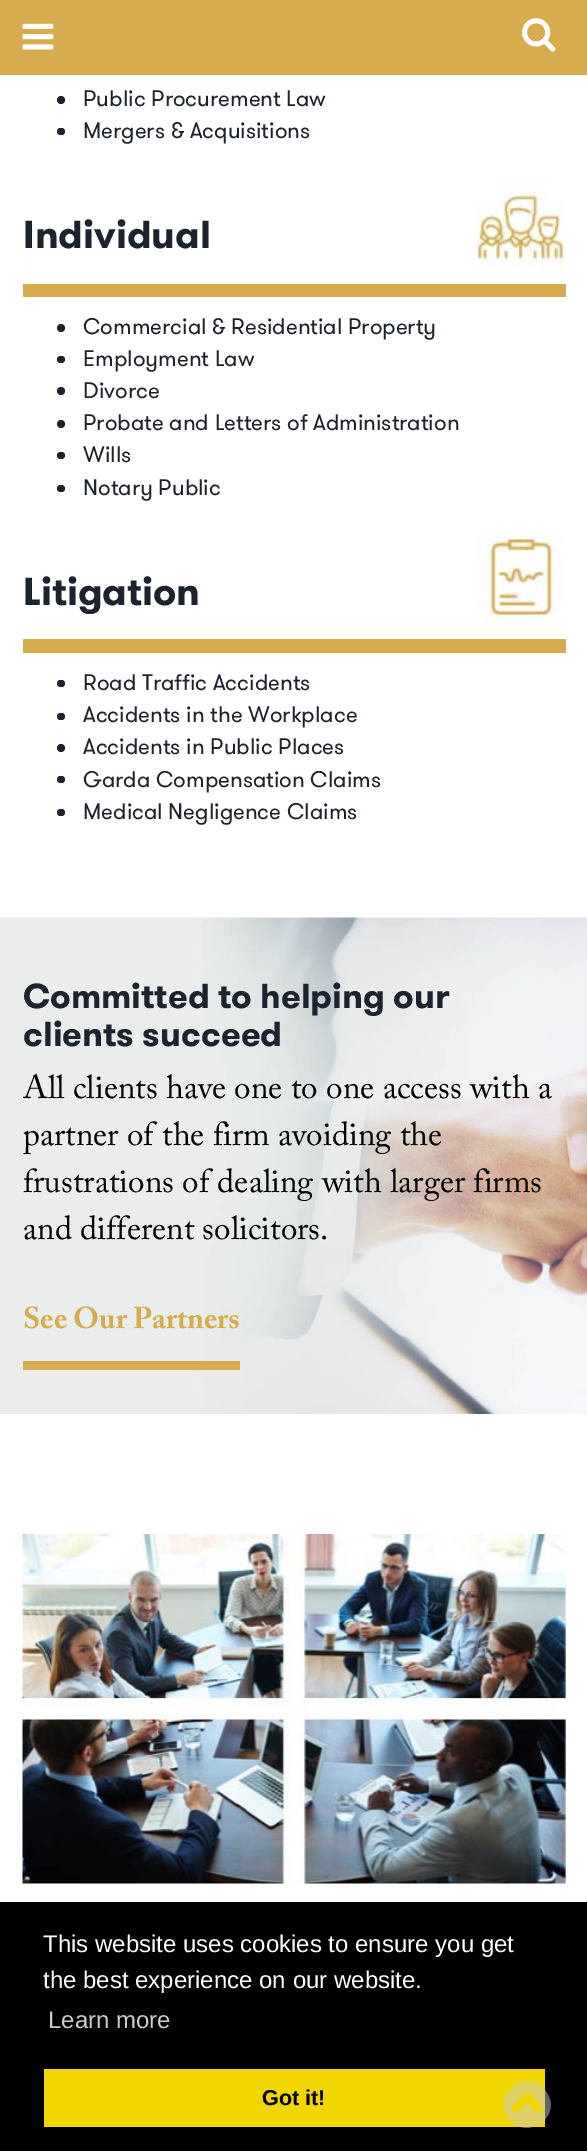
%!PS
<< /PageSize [587 2151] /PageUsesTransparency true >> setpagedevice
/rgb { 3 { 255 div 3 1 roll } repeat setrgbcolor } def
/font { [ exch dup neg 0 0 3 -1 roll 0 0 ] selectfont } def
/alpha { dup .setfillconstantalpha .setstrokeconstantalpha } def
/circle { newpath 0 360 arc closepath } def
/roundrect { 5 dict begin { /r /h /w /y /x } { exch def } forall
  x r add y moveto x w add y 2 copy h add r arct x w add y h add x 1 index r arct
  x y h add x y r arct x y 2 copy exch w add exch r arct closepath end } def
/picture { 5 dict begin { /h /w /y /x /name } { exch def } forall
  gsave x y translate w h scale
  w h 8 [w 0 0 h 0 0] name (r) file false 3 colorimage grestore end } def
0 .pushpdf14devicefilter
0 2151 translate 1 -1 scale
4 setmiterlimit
255 255 255 rgb
0 0 587 2151 rectfill
215 172 78 rgb
0 0 587 75 rectfill
(img/1.rgb) 22 23 32 27 picture
(img/2.rgb) 522 18 34 34 picture
28 34 46 rgb
61 100 4 circle fill
57 128 8 7 3.5 roundrect fill
(img/3.rgb) 475 178 91 90 picture
215 172 78 rgb
23 284 543 13 rectfill
28 34 46 rgb
61 328 4 circle fill
57 356 8 7 3.5 roundrect fill
61 391 4 circle fill
61 424 4 circle fill
57 452 8 7 3.5 roundrect fill
57 485 8 7 3.5 roundrect fill
(img/4.rgb) 475 533 91 91 picture
215 172 78 rgb
23 639 543 14 rectfill
28 34 46 rgb
57 680 8 7 3.5 roundrect fill
57 713 8 7 3.5 roundrect fill
61 748 4 circle fill
57 776 8 7 3.5 roundrect fill
57 809 8 7 3.5 roundrect fill
(img/5.rgb) 0 917 587 497 picture
215 172 78 rgb
23 1361 217 9 rectfill
(img/6.rgb) 22 1534 544 350 picture
0 0 0 rgb
0 1902 587 249 rectfill
241 214 0 rgb
44 2069 501 58 rectfill
0.5 alpha
203 203 203 rgb
539 2112 moveto 545 2107 544 2108 538 2102 curveto 525 2089 530 2089 517 2102 curveto 513 2105 509 2106 513 2110 curveto 516 2113 516 2114 519 2110 curveto 527 2103 lineto 533 2109 lineto 534 2110 537 2114 539 2112 curveto closepath 547 2093 moveto 563 2119 523 2143 507 2116 curveto 492 2090 532 2067 547 2093 curveto closepath fill
/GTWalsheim-Regular 22.5 font
1 alpha
28 34 46 rgb
83 106 moveto (Public Procurement Law) show
83 138 moveto (Mergers & Acquisitions) show
/GTWalsheim-Bold 39 font
23 248 moveto (Individual) show
/GTWalsheim-Regular 22.5 font
[
  [(Commercial & Residential Property) 83 334]
  [(Employment Law) 83 366]
  [(Divorce) 83 398]
  [(Probate and Letters of Administration) 83 430]
  [(Wills) 83 462]
  [(Notary Public) 83 495]
] { aload pop moveto show } forall
/GTWalsheim-Bold 39 font
23 605 moveto (Litigation) show
/GTWalsheim-Regular 22.5 font
[
  [(Road Traffic Accidents) 83 690]
  [(Accidents in the Workplace) 83 722]
  [(Accidents in Public Places) 83 754]
  [(Garda Compensation Claims) 83 787]
  [(Medical Negligence Claims) 83 819]
] { aload pop moveto show } forall
/GTWalsheim-Bold 34.5 font
23 1008 moveto (Committed to helping our) show
23 1046 moveto (clients succeed) show
/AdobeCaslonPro-Regular 33 font
0 0 0 rgb
[
  [(All clients have one to one access with a) 23 1098]
  [(partner of the firm avoiding the) 23 1145]
  [(frustrations of dealing with larger firms) 23 1192]
  [(and different solicitors.) 23 1239]
] { aload pop moveto show } forall
/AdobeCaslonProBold-Bold 30 font
215 172 78 rgb
23 1328 moveto (See Our Partners) show
/LiberationSans-Regular 24 font
255 255 255 rgb
43 1952 moveto (This website uses cookies to ensure you get) show
43 1988 moveto (the best experience on our website.) show
204 204 204 rgb
48 2028 moveto (Learn more) show
/LiberationSans-Bold 21.5 font
0 0 0 rgb
262 2105 moveto (Got it!) show
.poppdf14devicefilter showpage
